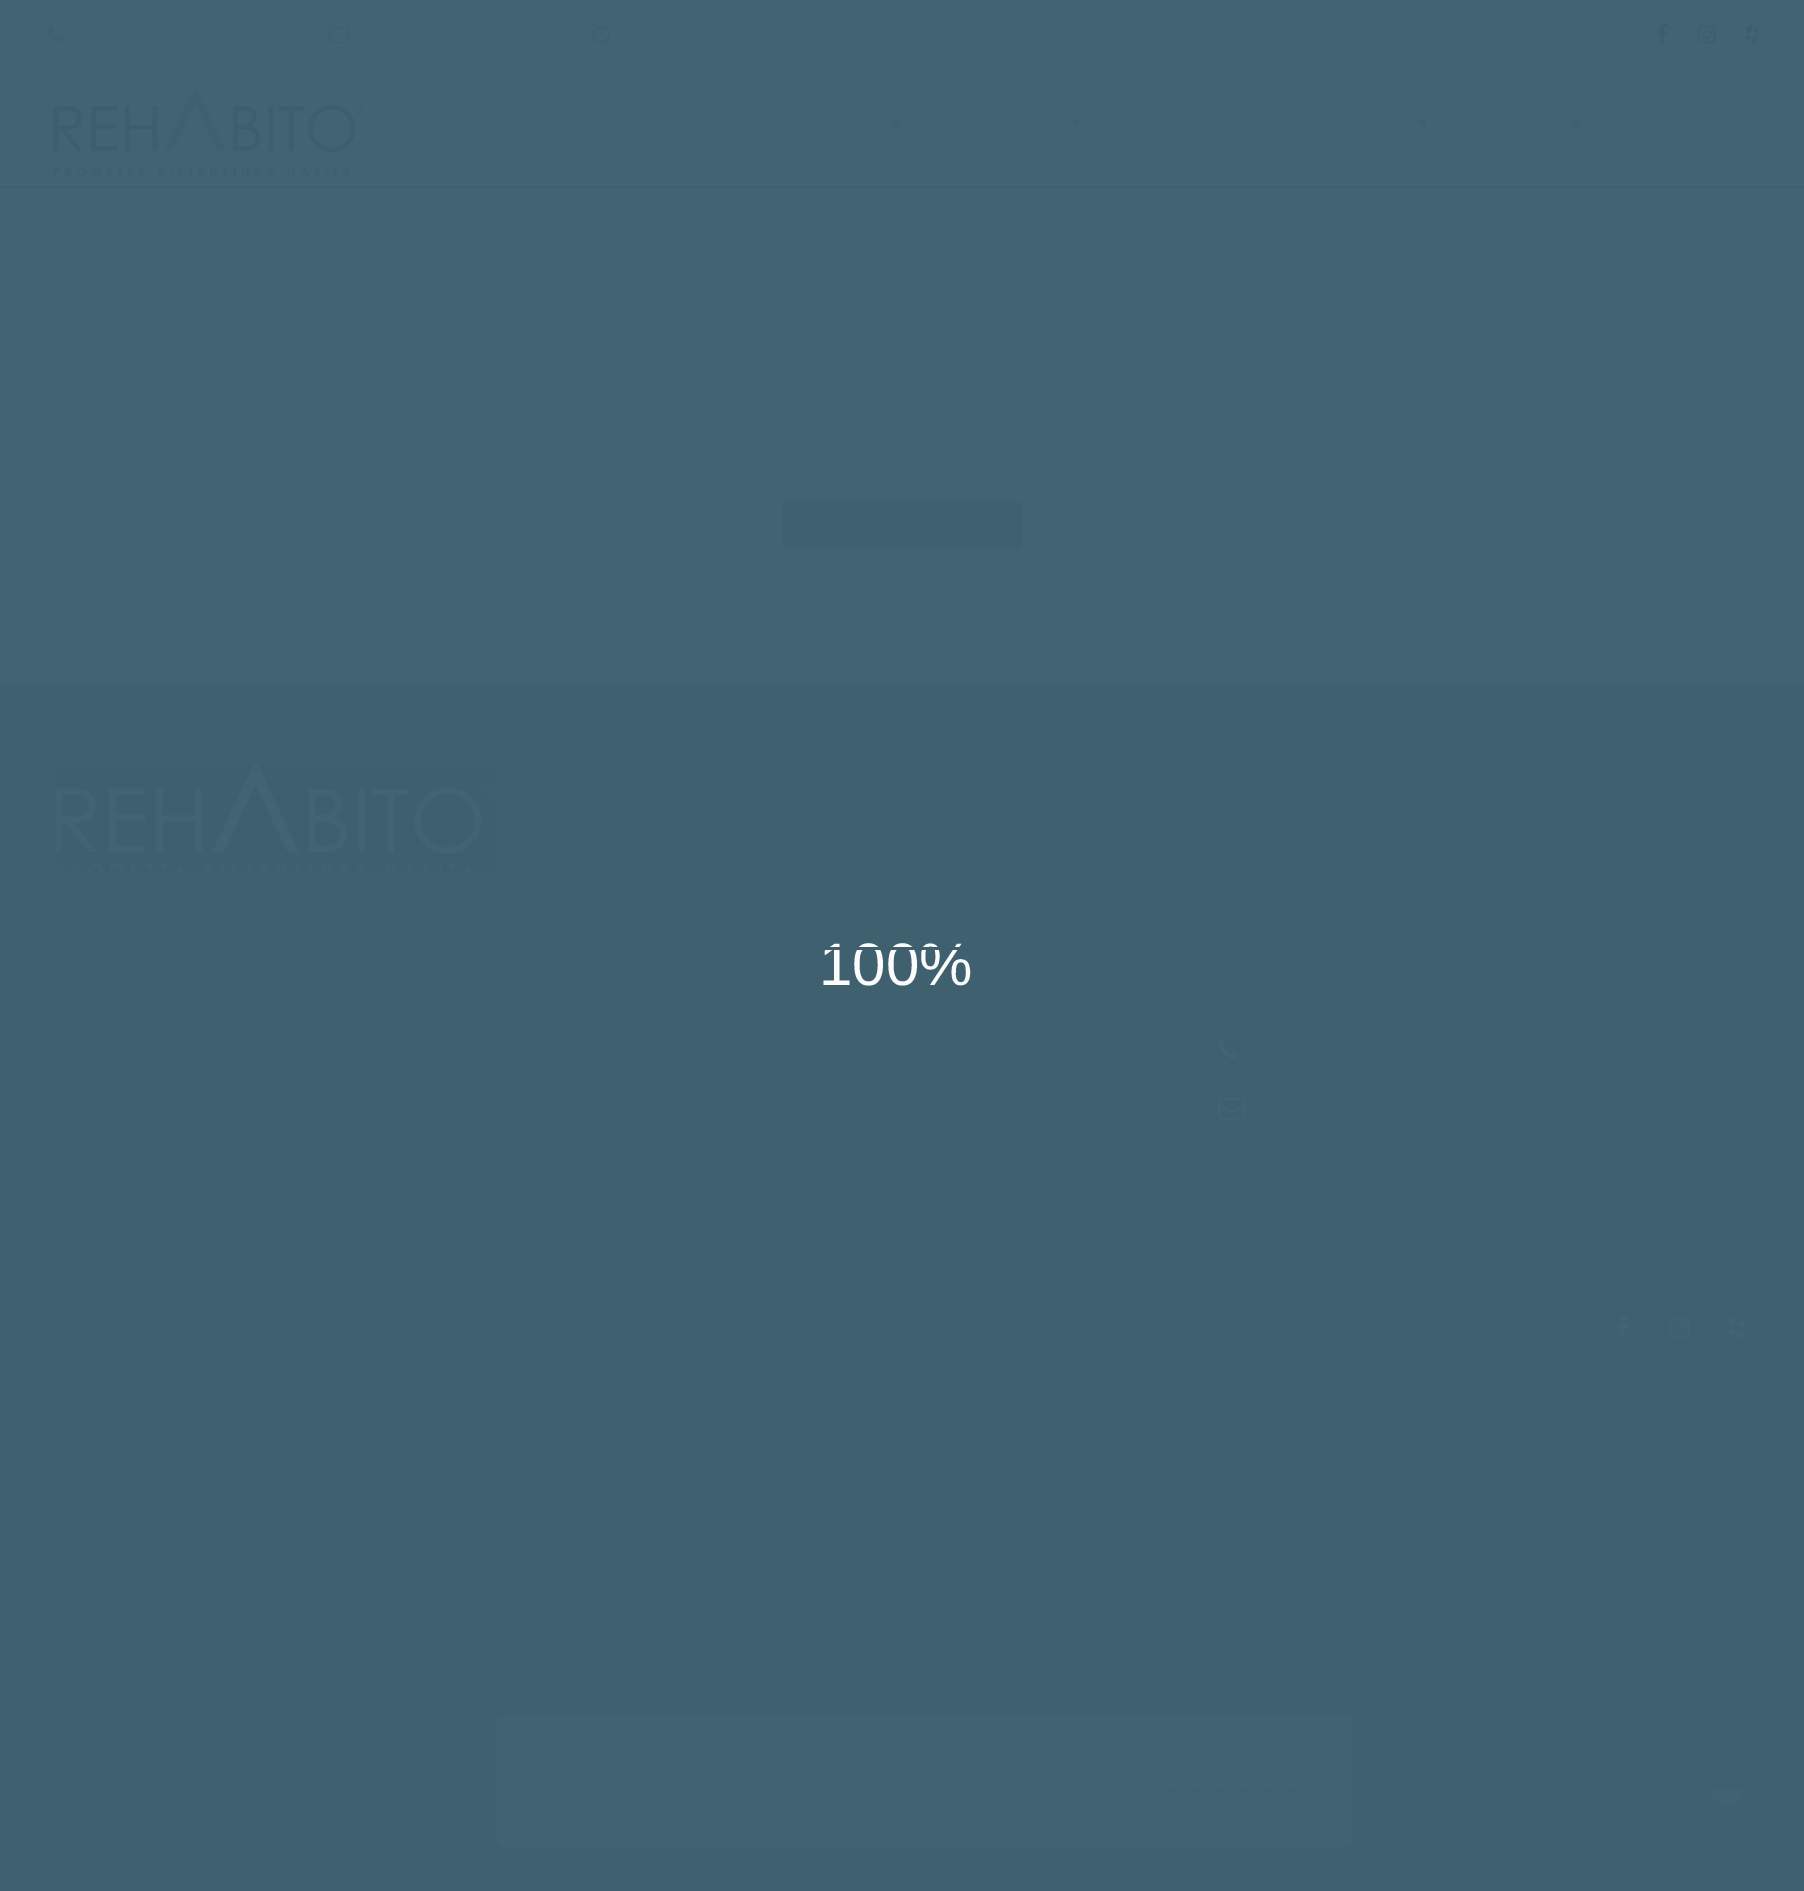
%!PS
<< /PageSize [1804 1891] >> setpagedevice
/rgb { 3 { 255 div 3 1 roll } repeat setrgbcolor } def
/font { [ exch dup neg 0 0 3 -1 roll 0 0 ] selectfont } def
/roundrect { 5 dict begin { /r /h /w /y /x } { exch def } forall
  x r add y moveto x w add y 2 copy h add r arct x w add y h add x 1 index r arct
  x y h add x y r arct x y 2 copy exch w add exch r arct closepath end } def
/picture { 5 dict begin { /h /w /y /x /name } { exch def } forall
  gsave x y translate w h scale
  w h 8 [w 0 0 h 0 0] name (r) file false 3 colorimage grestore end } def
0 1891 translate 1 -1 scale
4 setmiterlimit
62 96 111 rgb
0 0 1804 1891 rectfill
66 99 114 rgb
0 188 1804 496 rectfill
0 0 1804 186 rectfill
(img/1.rgb) 48 25 17 17 picture
(img/2.rgb) 328 27 22 17 picture
(img/3.rgb) 592 25 19 19 picture
(img/4.rgb) 1657 24 11 20 picture
(img/5.rgb) 1698 25 18 19 picture
(img/6.rgb) 1746 24 12 21 picture
(img/7.rgb) 53 89 312 88 picture
(img/8.rgb) 892 118 9 9 picture
(img/8.rgb) 1072 118 9 9 picture
(img/9.rgb) 1419 118 8 9 picture
(img/9.rgb) 1572 118 8 9 picture
62 96 111 rgb
782 501 241 48 6 roundrect fill
(img/10.rgb) 799 511 19 19 picture
(img/11.rgb) 56 764 438 112 picture
(img/12.rgb) 1218 1037 22 22 picture
(img/13.rgb) 1218 1098 27 22 picture
(img/14.rgb) 1616 1315 13 24 picture
(img/15.rgb) 1669 1317 22 22 picture
(img/16.rgb) 1729 1316 15 24 picture
(img/17.rgb) 1713 1789 28 16 picture
65 98 113 rgb
497 1715 856 132 8 roundrect fill
61 94 109 rgb
1.5 setlinewidth
[1.5 1.5] 0 setdash
1147.5 1790 moveto 1318.5 1790 lineto stroke
/LiberationSans-Regular 60 font
251 251 251 rgb
819 985 moveto (100%) show
61 95 110 rgb
596 947 600 3 1.5 roundrect fill
showpage
